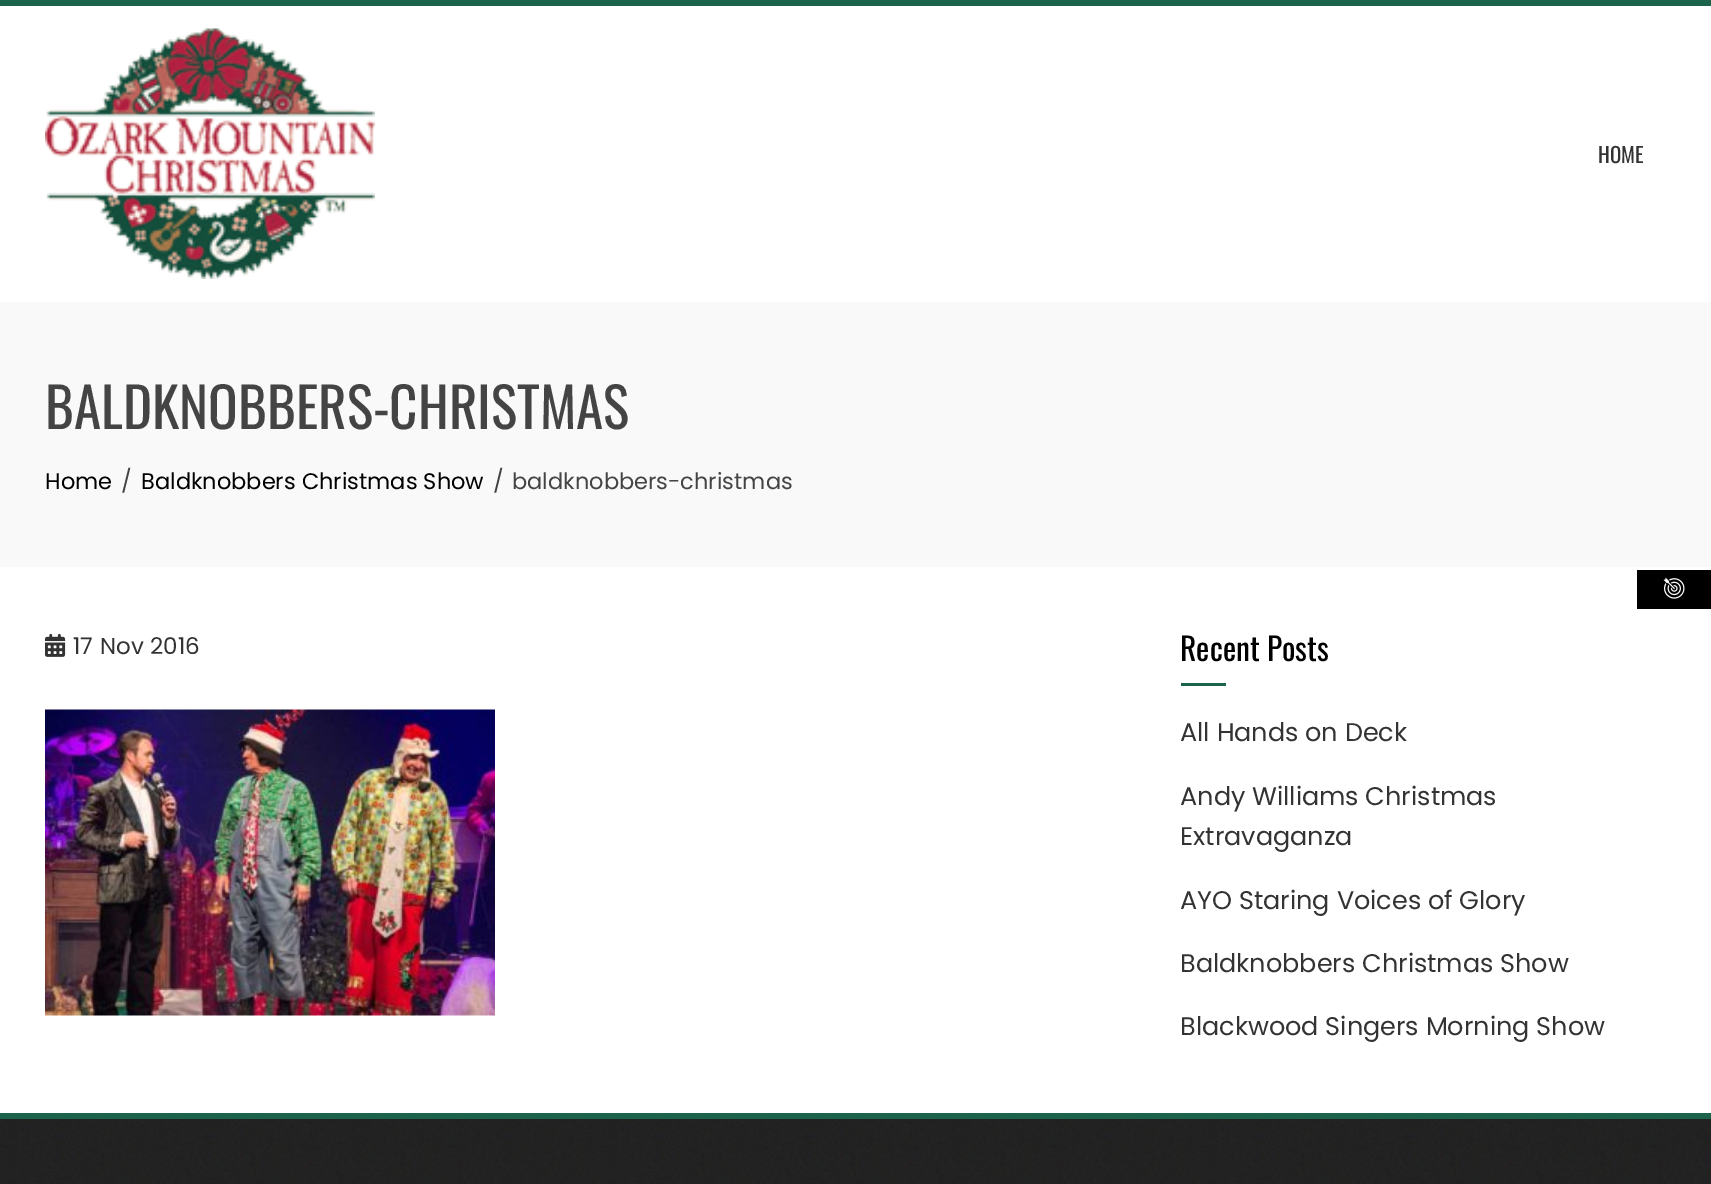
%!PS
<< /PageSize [1711 1184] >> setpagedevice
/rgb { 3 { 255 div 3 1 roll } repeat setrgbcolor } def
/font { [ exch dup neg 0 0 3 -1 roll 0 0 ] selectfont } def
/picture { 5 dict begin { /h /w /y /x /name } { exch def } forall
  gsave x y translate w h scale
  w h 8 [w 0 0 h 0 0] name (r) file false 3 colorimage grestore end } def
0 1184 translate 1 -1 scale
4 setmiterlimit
255 255 255 rgb
0 0 1711 1184 rectfill
28 99 76 rgb
0 0 1711 6 rectfill
(img/1.rgb) 45 28 330 251 picture
249 249 249 rgb
0 302 1711 265 rectfill
(img/2.rgb) 45 633 21 24 picture
(img/3.rgb) 45 709 450 307 picture
28 99 76 rgb
1181 683 45 3 rectfill
(img/4.rgb) 0 1119 1711 65 picture
0 1113 1711 6 rectfill
0 0 0 rgb
1637 570 74 39 rectfill
(img/5.rgb) 1663 577 22 22 picture
/Oswald-Regular 21 font
51 51 51 rgb
1598 163 moveto (HOME) show
/Oswald-Regular 55.1 font
68 68 68 rgb
45 429 moveto (BALDKNOBBERS-CHRISTMAS) show
/Poppins-Regular 22.5 font
0 0 0 rgb
45 489 moveto (Home) show
68 68 68 rgb
121 489 moveto (/) show
0 0 0 rgb
141 489 moveto (Baldknobbers Christmas Show) show
68 68 68 rgb
493 489 moveto (/) show
512 489 moveto (baldknobbers-christmas) show
/Poppins-Regular 23 font
51 51 51 rgb
73 654 moveto (17) show
100 654 moveto (Nov 2016) show
/Oswald-Regular 31.5 font
0 0 0 rgb
1180 661 moveto (Recent Posts) show
/Poppins-Regular 25.5 font
51 51 51 rgb
[
  [(All Hands on Deck) 1180 741]
  [(Andy Williams Christmas) 1180 805]
  [(Extravaganza) 1180 845]
  [(AYO Staring Voices of Glory) 1180 909]
  [(Baldknobbers Christmas Show) 1180 972]
  [(Blackwood Singers Morning Show) 1180 1035]
] { aload pop moveto show } forall
showpage
